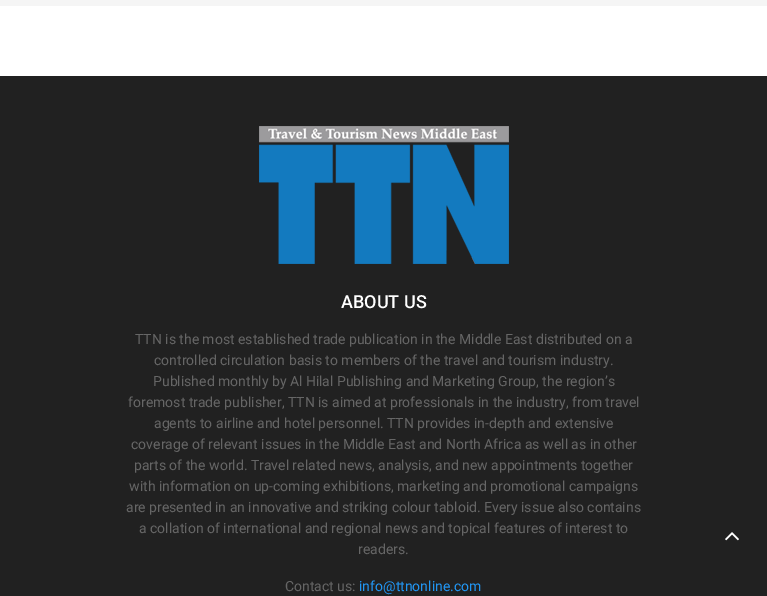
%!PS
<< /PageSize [767 596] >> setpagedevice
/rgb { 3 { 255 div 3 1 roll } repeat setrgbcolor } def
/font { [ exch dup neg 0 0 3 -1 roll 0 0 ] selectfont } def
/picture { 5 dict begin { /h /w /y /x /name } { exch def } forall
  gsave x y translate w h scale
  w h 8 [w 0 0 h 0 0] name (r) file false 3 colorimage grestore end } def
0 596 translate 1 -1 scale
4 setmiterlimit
245 245 245 rgb
0 0 767 596 rectfill
255 255 255 rgb
0 6 767 70 rectfill
33 33 33 rgb
0 76 767 520 rectfill
(img/1.rgb) 259 126 250 138 picture
(img/2.rgb) 725 532 14 9 picture
/Roboto-Medium 18 font
255 255 255 rgb
341 308 moveto (ABOUT US) show
/Roboto-Regular 14 font
102 102 102 rgb
[
  [(TTN is the most established trade publication in the Middle East distributed on a) 135 344]
  [(controlled circulation basis to members of the travel and tourism industry.) 154 365]
  [(Published monthly by Al Hilal Publishing and Marketing Group, the region’s) 153 386]
  [(foremost trade publisher, TTN is aimed at professionals in the industry, from travel) 128 407]
  [(agents to airline and hotel personnel. TTN provides in-depth and extensive) 154 428]
  [(coverage of relevant issues in the Middle East and North Africa as well as in other) 131 449]
  [(parts of the world. Travel related news, analysis, and new appointments together) 134 470]
  [(with information on up-coming exhibitions, marketing and promotional campaigns) 129 491]
  [(are presented in an innovative and striking colour tabloid. Every issue also contains) 126 512]
  [(a collation of international and regional news and topical features of interest to) 139 533]
  [(readers.) 358 554]
  [(Contact us:) 285 591]
] { aload pop moveto show } forall
33 150 243 rgb
359 591 moveto (info@ttnonline.com) show
showpage
